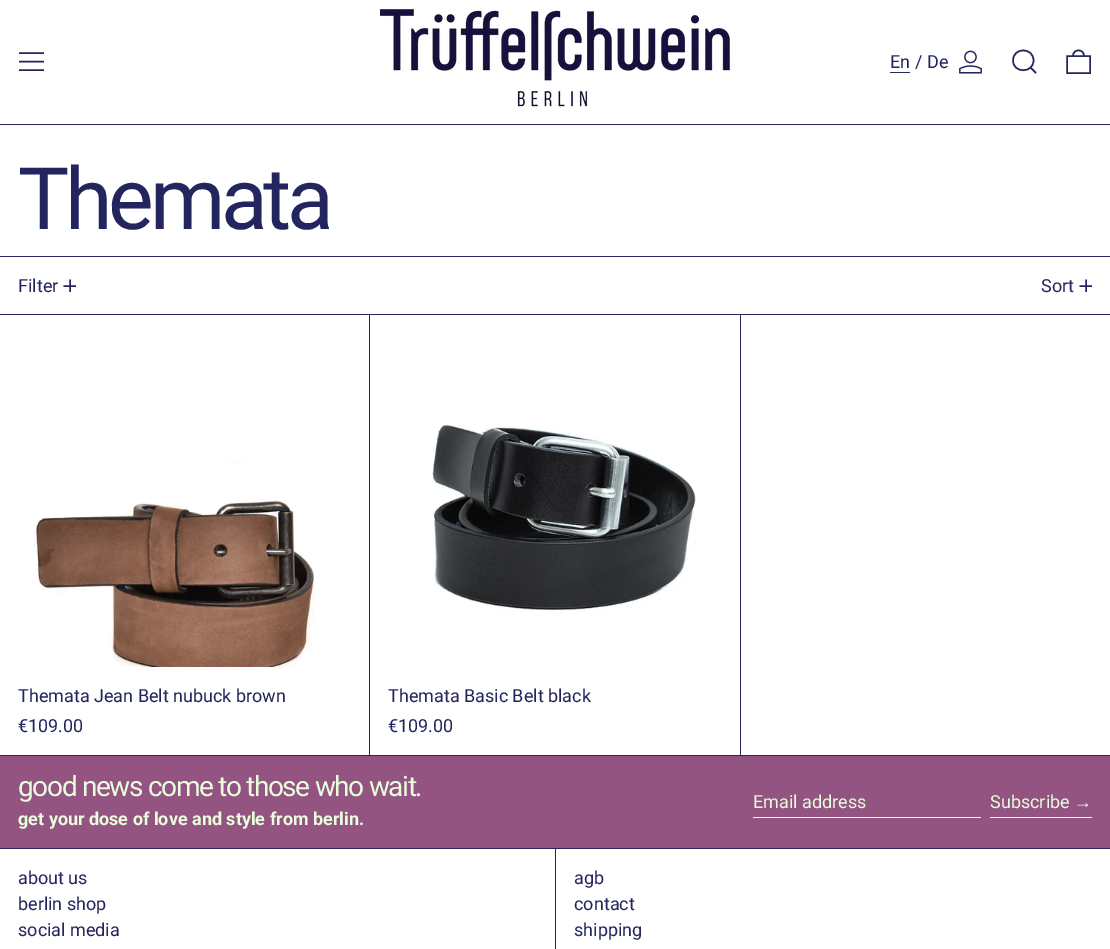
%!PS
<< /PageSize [1110 949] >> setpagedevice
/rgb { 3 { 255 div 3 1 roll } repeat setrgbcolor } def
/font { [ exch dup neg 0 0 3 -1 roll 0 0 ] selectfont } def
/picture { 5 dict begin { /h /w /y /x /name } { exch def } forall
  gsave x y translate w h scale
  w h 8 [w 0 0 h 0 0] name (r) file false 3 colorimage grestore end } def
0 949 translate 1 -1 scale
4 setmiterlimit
255 255 255 rgb
0 0 1110 949 rectfill
35 37 94 rgb
0 124 1110 1 rectfill
1.5 setlinewidth
19 53 moveto 44 53 lineto 19 61.5 moveto 44 61.5 lineto 19 70 moveto 44 70 lineto stroke
(img/1.rgb) 380 9 350 98 picture
890 72 20 1 rectfill
(img/2.rgb) 959 50 23 24 picture
1013 60.5 moveto 1013 73.5 1033.5 73.5 1033.5 60.5 curveto 1033.5 47 1013 47 1013 60.5 curveto closepath 1030.5 67.5 moveto 1036 73 lineto stroke
1067 56 moveto 1090 56 lineto 1090 73 lineto 1067 73 lineto closepath 1084 56 moveto 1084 48.5 1073 48.5 1073 56 curveto stroke
[
  [0 755 1110 1 35 37 94]
  [0 256 1110 1 35 37 94]
  [0 314 1110 1 35 37 94]
] { aload pop rgb rectfill } forall
70 279.5 moveto 70 292 lineto 63.5 286 moveto 76 286 lineto stroke
1086 279.5 moveto 1086 292 lineto 1079.5 286 moveto 1092 286 lineto stroke
369 315 372 440 rectfill
(img/3.rgb) 33 460 281 207 picture
255 255 255 rgb
370 315 370 440 rectfill
(img/4.rgb) 432 424 265 187 picture
[
  [0 756 1110 92 147 84 130]
  [0 848 1110 1 35 37 94]
  [753 817 228 1 233 252 220]
  [990 817 102 1 233 252 220]
  [555 849 1 100 35 37 94]
] { aload pop rgb rectfill } forall
/Roboto-Regular 18 font
890 68 moveto (En) show
915 68 moveto (/ De) show
/Roboto-Regular 86 font
18 229 moveto -4.25 0 (Themata) ashow
/Roboto-Regular 18 font
[
  [(Filter) 18 292]
  [(Sort) 1041 292]
  [(Themata Jean Belt nubuck brown) 18 702]
  [(€109.00) 18 732]
  [(Themata Basic Belt black) 388 702]
  [(€109.00) 388 732]
] { aload pop moveto show } forall
/Roboto-Regular 28.1 font
233 252 220 rgb
18 796 moveto -1.4 0 (good news come to those who wait.) ashow
/Roboto-Bold 18 font
18 825 moveto (get your dose of love and style from berlin.) show
/Roboto-Regular 18 font
753 808 moveto (Email address) show
990 808 moveto (Subscribe) show
/LiberationSans-Regular 18 font
1074 808 moveto (→) show
/Roboto-Regular 18 font
35 37 94 rgb
[
  [(about us) 18 884]
  [(berlin shop) 18 910]
  [(social media) 18 936]
  [(agb) 574 884]
  [(contact) 574 910]
  [(shipping) 574 936]
] { aload pop moveto show } forall
showpage
